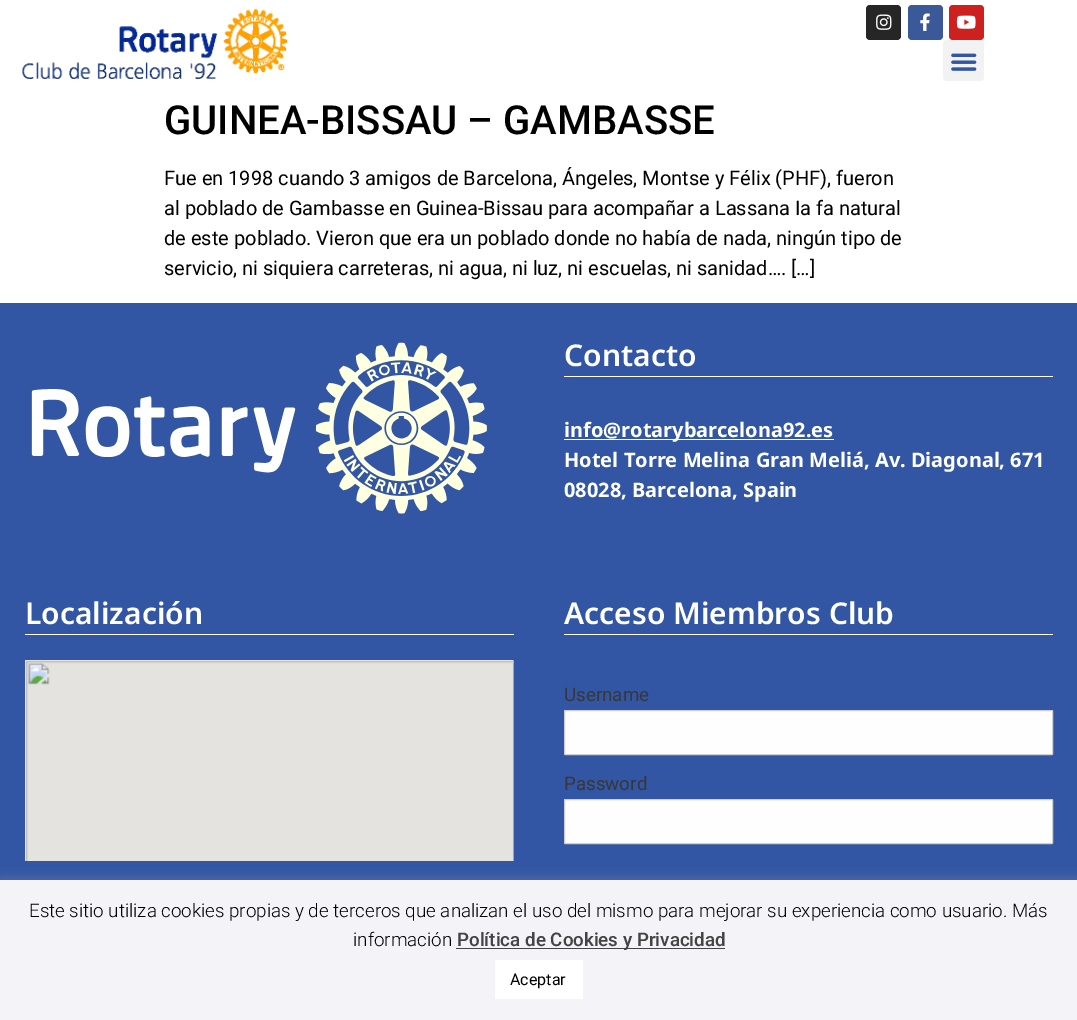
%!PS
<< /PageSize [1077 1020] /PageUsesTransparency true >> setpagedevice
/rgb { 3 { 255 div 3 1 roll } repeat setrgbcolor } def
/font { [ exch dup neg 0 0 3 -1 roll 0 0 ] selectfont } def
/alpha { dup .setfillconstantalpha .setstrokeconstantalpha } def
/roundrect { 5 dict begin { /r /h /w /y /x } { exch def } forall
  x r add y moveto x w add y 2 copy h add r arct x w add y h add x 1 index r arct
  x y h add x y r arct x y 2 copy exch w add exch r arct closepath end } def
/shadow { 12 dict begin { /a /b /q /h /w /y /x } { exch def } forall gsave /was 0 def
  9 -2 -9 { dup b mul 4 div /e exch def 1 sub .425 mul 2.718 exch exp 1 add a .99 .min exch div /now exch def
    1 1 now sub 1 was sub div sub alpha /was now def
    w h .min e 2 mul add 0 gt { x e sub y e sub w e 2 mul add h e 2 mul add
      q e add b .6 mul add w h .min 2 div e add .min 0 .max roundrect fill } if } for grestore end } def
/picture { 5 dict begin { /h /w /y /x /name } { exch def } forall
  gsave x y translate w h scale
  w h 8 [w 0 0 h 0 0] name (r) file false 3 colorimage grestore end } def
0 .pushpdf14devicefilter
0 1020 translate 1 -1 scale
4 setmiterlimit
255 255 255 rgb
0 0 1077 1020 rectfill
(img/1.rgb) 22 8 266 71 picture
38 38 38 rgb
866 5 35 35 4 roundrect fill
(img/2.rgb) 876 14 16 16 picture
59 89 152 rgb
908 5 35 35 4 roundrect fill
(img/3.rgb) 920 13 10 18 picture
205 32 31 rgb
949 5 35 35 4 roundrect fill
(img/4.rgb) 956 15 20 14 picture
242 242 242 rgb
943 40 41 41 4 roundrect fill
(img/5.rgb) 951 53 26 18 picture
50 86 163 rgb
0 303 1077 257 rectfill
(img/6.rgb) 31 342 456 172 picture
[
  [564 376 489 1 255 255 255]
  [564 439 270 1 255 255 255]
  [0 560 1077 320 50 86 163]
  [25 634 489 1 255 255 255]
] { aload pop rgb rectfill } forall
(img/7.rgb) 25 660 489 201 picture
564 634 489 1 rectfill
254 254 254 rgb
564.5 710.5 488 44 0.5 roundrect gsave fill grestore
207 207 207 rgb
stroke
254 254 254 rgb
564.5 799.5 488 44 0.5 roundrect gsave fill grestore
207 207 207 rgb
stroke
172 171 171 rgb
0 879 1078 140 0 6 0.3 shadow
[
  [0 880 1077 140 243 243 248]
  [456 948 269 1 68 68 68]
  [495 960 88 39 255 255 255]
] { aload pop rgb rectfill } forall
/Roboto-Medium 40 font
0 0 0 rgb
164 134 moveto (GUINEA-BISSAU – GAMBASSE) show
/Roboto-Regular 20 font
[
  [(Fue en 1998 cuando 3 amigos de Barcelona, Ángeles, Montse y Félix \(PHF\), fueron) 164 185]
  [(al poblado de Gambasse en Guinea-Bissau para acompañar a Lassana Ia fa natural) 164 215]
  [(de este poblado. Vieron que era un poblado donde no había de nada, ningún tipo de) 164 245]
  [(servicio, ni siquiera carreteras, ni agua, ni luz, ni escuelas, ni sanidad…. […]) 164 275]
] { aload pop moveto show } forall
/NotoSans-SemiBold 30 font
255 255 255 rgb
564 366 moveto (Contacto) show
/NotoSans-Bold 20 font
[
  [(info@rotarybarcelona92.es) 564 437]
  [(Hotel Torre Melina Gran Meliá, Av. Diagonal, 671) 564 467]
  [(08028, Barcelona, Spain) 564 497]
] { aload pop moveto show } forall
/NotoSans-SemiBold 30 font
25 624 moveto (Localización) show
564 624 moveto (Acceso Miembros Club) show
/Roboto-Regular 18.75 font
55 55 55 rgb
564 701 moveto (Username) show
564 790 moveto (Password) show
/Roboto-Light 18.75 font
0 0 0 rgb
29 917 moveto (Este sitio utiliza cookies propias y de terceros que analizan el uso del mismo para mejorar su experiencia como usuario. Más) show
353 946 moveto (información) show
/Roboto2-Medium 18.75 font
68 68 68 rgb
457 946 moveto (Política de Cookies y Privacidad) show
/Roboto-Regular 16 font
0 0 0 rgb
510 985 moveto (Aceptar) show
.poppdf14devicefilter showpage
